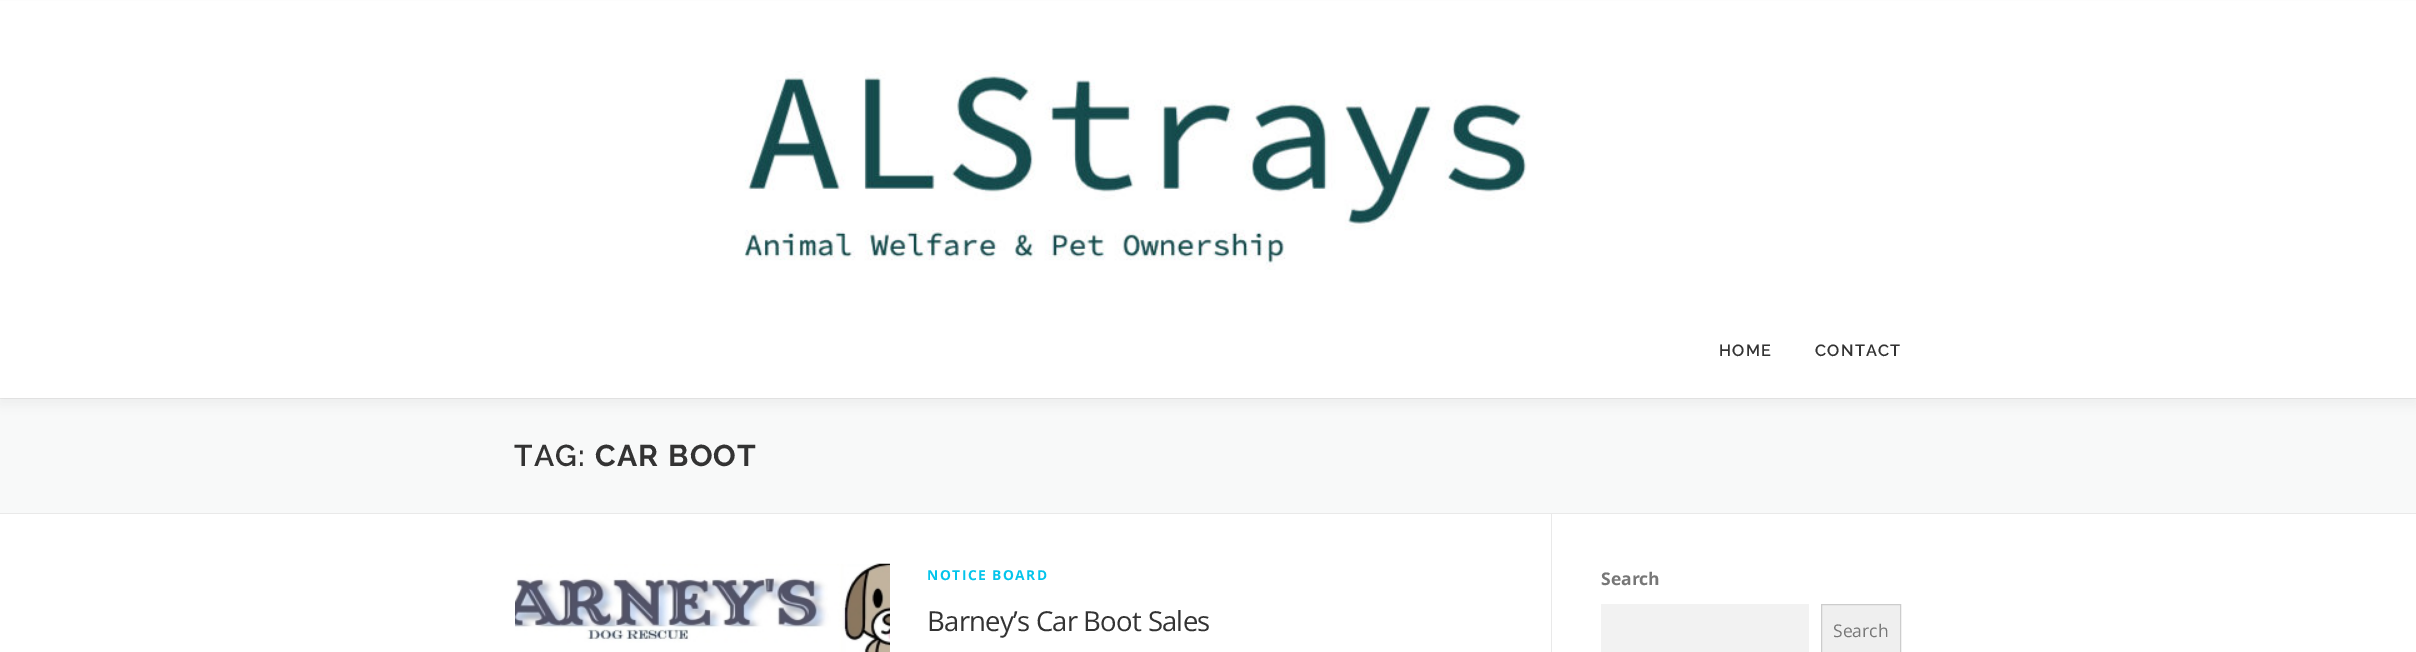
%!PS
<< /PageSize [2416 652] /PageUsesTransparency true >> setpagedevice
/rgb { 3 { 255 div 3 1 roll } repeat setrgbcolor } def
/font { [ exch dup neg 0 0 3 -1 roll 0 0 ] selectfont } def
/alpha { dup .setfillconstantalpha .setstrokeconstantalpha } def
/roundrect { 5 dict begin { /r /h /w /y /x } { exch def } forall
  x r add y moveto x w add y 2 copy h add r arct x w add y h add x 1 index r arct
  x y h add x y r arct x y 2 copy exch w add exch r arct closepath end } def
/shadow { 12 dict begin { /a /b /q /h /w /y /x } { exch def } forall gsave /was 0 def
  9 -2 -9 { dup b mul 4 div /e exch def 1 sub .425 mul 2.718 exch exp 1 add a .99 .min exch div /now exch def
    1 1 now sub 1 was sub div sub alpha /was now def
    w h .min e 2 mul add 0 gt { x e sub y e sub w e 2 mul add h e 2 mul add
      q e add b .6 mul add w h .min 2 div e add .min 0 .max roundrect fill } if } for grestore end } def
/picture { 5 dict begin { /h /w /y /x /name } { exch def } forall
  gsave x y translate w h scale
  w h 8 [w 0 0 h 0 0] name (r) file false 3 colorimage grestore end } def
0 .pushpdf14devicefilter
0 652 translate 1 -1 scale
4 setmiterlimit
255 255 255 rgb
0 0 2416 652 rectfill
248 249 249 rgb
0 399 2416 114 rectfill
233 233 233 rgb
0 398 2416 1 rectfill
50 50 50 rgb
0 6 2416 398 0 6 0.06 shadow
255 255 255 rgb
0 1 2416 397 rectfill
(img/1.rgb) 744 70 783 200 picture
233 233 233 rgb
0 513 2416 1 rectfill
1551 514 1 138 rectfill
(img/2.rgb) 515 563 375 89 picture
242 242 242 rgb
1601 604 208 48 rectfill
239 239 239 rgb
1821.5 604.5 moveto 1900.5 604.5 lineto 1900.5 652.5 lineto 1821.5 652.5 lineto closepath gsave fill grestore
204 204 204 rgb
stroke
/Raleway-SemiBold 16.25 font
51 51 51 rgb
1719 356 moveto 1.25 0 (HOME) ashow
1815 356 moveto 1.25 0 (CONTACT) ashow
/Raleway-SemiBold 30 font
514 466 moveto 1.25 0 (TAG:) ashow
/Raleway-Bold 30 font
595 466 moveto 1.25 0 (CAR BOOT) ashow
/OpenSans-Bold 13.75 font
3 196 235 rgb
927 580 moveto 1.5 0 (NOTICE BOARD) ashow
/OpenSans-Regular 27.5 font
51 51 51 rgb
927 631 moveto -0.75 0 (Barney’s Car Boot Sales) ashow
/OpenSans-Bold 17.5 font
119 119 119 rgb
1601 585 moveto (Search) show
/OpenSans-Regular 17.5 font
1833 637 moveto (Search) show
.poppdf14devicefilter showpage
